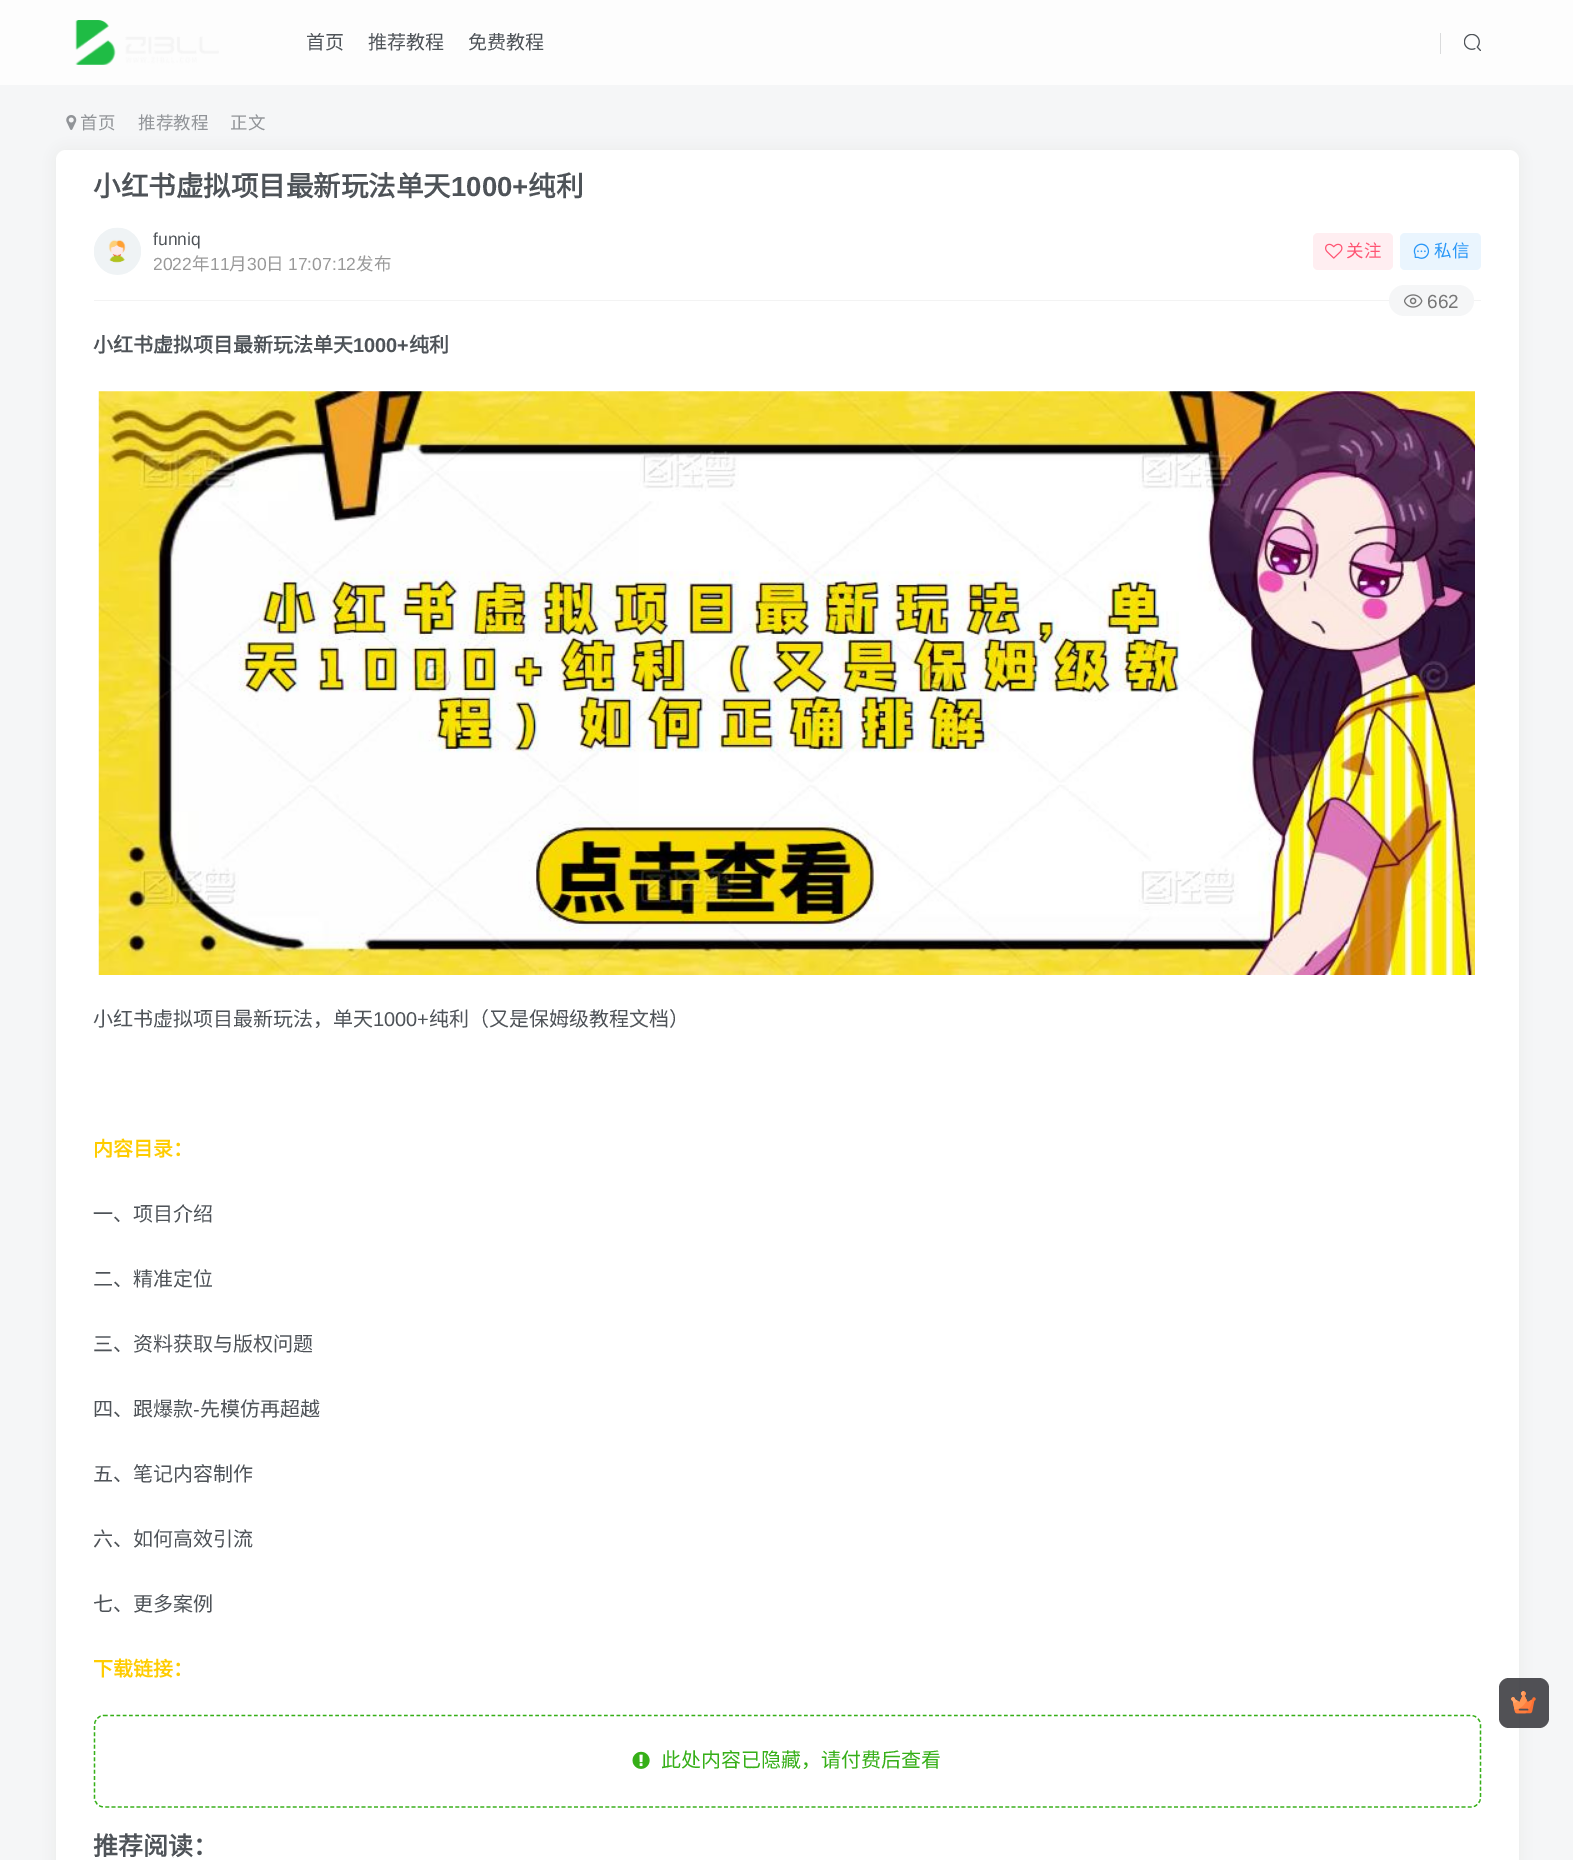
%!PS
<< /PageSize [1573 1860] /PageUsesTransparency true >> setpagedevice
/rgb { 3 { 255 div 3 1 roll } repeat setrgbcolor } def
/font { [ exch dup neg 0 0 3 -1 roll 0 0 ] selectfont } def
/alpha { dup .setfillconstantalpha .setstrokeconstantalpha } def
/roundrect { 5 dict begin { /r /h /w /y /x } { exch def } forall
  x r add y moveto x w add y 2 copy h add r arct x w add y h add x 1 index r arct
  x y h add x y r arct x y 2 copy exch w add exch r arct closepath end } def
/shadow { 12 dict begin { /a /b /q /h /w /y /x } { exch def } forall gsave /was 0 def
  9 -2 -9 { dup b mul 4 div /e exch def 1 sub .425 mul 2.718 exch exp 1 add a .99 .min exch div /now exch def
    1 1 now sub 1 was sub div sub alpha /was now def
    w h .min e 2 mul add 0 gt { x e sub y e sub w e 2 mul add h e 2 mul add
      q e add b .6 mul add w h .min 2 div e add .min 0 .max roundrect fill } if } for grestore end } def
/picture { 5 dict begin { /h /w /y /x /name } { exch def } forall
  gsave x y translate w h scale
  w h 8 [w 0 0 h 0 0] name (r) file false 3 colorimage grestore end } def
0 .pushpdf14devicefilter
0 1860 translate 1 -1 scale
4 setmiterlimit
245 246 247 rgb
0 0 1573 1860 rectfill
253 253 253 rgb
0 0 1573 85 rectfill
(img/1.rgb) 75 20 144 45 picture
218 219 220 rgb
1440 33 1 21 rectfill
(img/2.rgb) 1464 34 17 17 picture
(img/3.rgb) 66 115 11 15 picture
116 116 116 rgb
56 150 1463 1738 10 6 0.08 shadow
255 255 255 rgb
56 150 1463 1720 10 roundrect fill
(img/4.rgb) 94 227 47 48 picture
255 238 241 rgb
1313 233 80 37 5 roundrect fill
(img/5.rgb) 1325 243 18 16 picture
234 245 254 rgb
1400 233 81 37 5 roundrect fill
(img/6.rgb) 1413 243 17 16 picture
243 243 243 rgb
94 300 1387 1 rectfill
245 246 247 rgb
1389 285 85 31 15.5 roundrect fill
(img/7.rgb) 1404 294 19 14 picture
(img/8.rgb) 98 391 1377 584 picture
54 175 24 rgb
1.2 setlinewidth
[3.75 2.5] 0 setdash
104 1715.5 moveto 1471 1715.5 lineto 1476.5 1715.5 1480.5 1720 1480.5 1725 curveto 1480.5 1797.5 lineto 1480.5 1802.5 1476.5 1807 1471 1807 curveto 104 1807 lineto 98.5 1807 94.5 1802.5 94.5 1797.5 curveto 94.5 1725 lineto 94.5 1720 98.5 1715.5 104 1715.5 curveto closepath stroke
(img/9.rgb) 632 1751 18 18 picture
0.9 alpha
62 62 67 rgb
1499 1678 50 50 10 roundrect fill
1 alpha
(img/10.rgb) 1511 1691 25 23 picture
/NotoSansCJKSC-Regular 19 font
78 83 88 rgb
[
  [(首页) 306 49]
  [(推荐教程) 368 49]
  [(免费教程) 468 49]
] { aload pop moveto show } forall
/NotoSansCJKSC-Regular 17.5 font
145 148 152 rgb
[
  [(首页) 80 129]
  [(推荐教程) 138 129]
  [(正文) 230 129]
] { aload pop moveto show } forall
/NotoSansCJKSC-Bold 27.5 font
78 83 88 rgb
93 196 moveto (小红书虚拟项目最新玩法单天) show
/LiberationSans-Bold 27.5 font
451 196 moveto (1000+) show
/NotoSansCJKSC-Bold 27.5 font
528 196 moveto (纯利) show
/LiberationSans-Regular 17.5 font
153 245 moveto (funniq) show
153 153 153 rgb
153 270 moveto (2022) show
/NotoSansCJKSC-Regular 17.5 font
192 270 moveto (年) show
/LiberationSans-Regular 17.5 font
210 270 moveto (11) show
/NotoSansCJKSC-Regular 17.5 font
229 270 moveto (月) show
/LiberationSans-Regular 17.5 font
247 270 moveto (30) show
/NotoSansCJKSC-Regular 17.5 font
266 270 moveto (日) show
/LiberationSans-Regular 17.5 font
288 270 moveto (17:07:12) show
/NotoSansCJKSC-Regular 17.5 font
356 270 moveto (发布) show
255 84 115 rgb
1346 257 moveto (关注) show
41 151 247 rgb
1434 257 moveto (私信) show
/LiberationSans-Regular 19 font
119 119 119 rgb
1427 308 moveto (662) show
/NotoSansCJKSC-Bold 20 font
78 83 88 rgb
93 352 moveto (小红书虚拟项目最新玩法单天) show
/LiberationSans-Bold 20 font
353 352 moveto (1000+) show
/NotoSansCJKSC-Bold 20 font
409 352 moveto (纯利) show
/NotoSansCJKSC-Regular 20 font
93 1026 moveto (小红书虚拟项目最新玩法，单天) show
/LiberationSans-Regular 20 font
373 1026 moveto (1000+) show
/NotoSansCJKSC-Regular 20 font
429 1026 moveto (纯利（又是保姆级教程文档）) show
/NotoSansCJKSC-Bold 20 font
255 204 0 rgb
93 1156 moveto (内容目录：) show
/NotoSansCJKSC-Regular 20 font
78 83 88 rgb
[
  [(一、项目介绍) 93 1221]
  [(二、精准定位) 93 1286]
  [(三、资料获取与版权问题) 93 1351]
  [(四、跟爆款) 93 1416]
] { aload pop moveto show } forall
/LiberationSans-Regular 20 font
193 1416 moveto (-) show
/NotoSansCJKSC-Regular 20 font
[
  [(先模仿再超越) 200 1416]
  [(五、笔记内容制作) 93 1481]
  [(六、如何高效引流) 93 1546]
  [(七、更多案例) 93 1611]
] { aload pop moveto show } forall
/NotoSansCJKSC-Bold 20 font
255 204 0 rgb
93 1676 moveto (下载链接：) show
/NotoSansCJKSC-Regular 20 font
54 175 24 rgb
661 1767 moveto (此处内容已隐藏，请付费后查看) show
/NotoSansCJKSC-Bold 25 font
78 83 88 rgb
93 1855 moveto (推荐阅读：) show
.poppdf14devicefilter showpage
